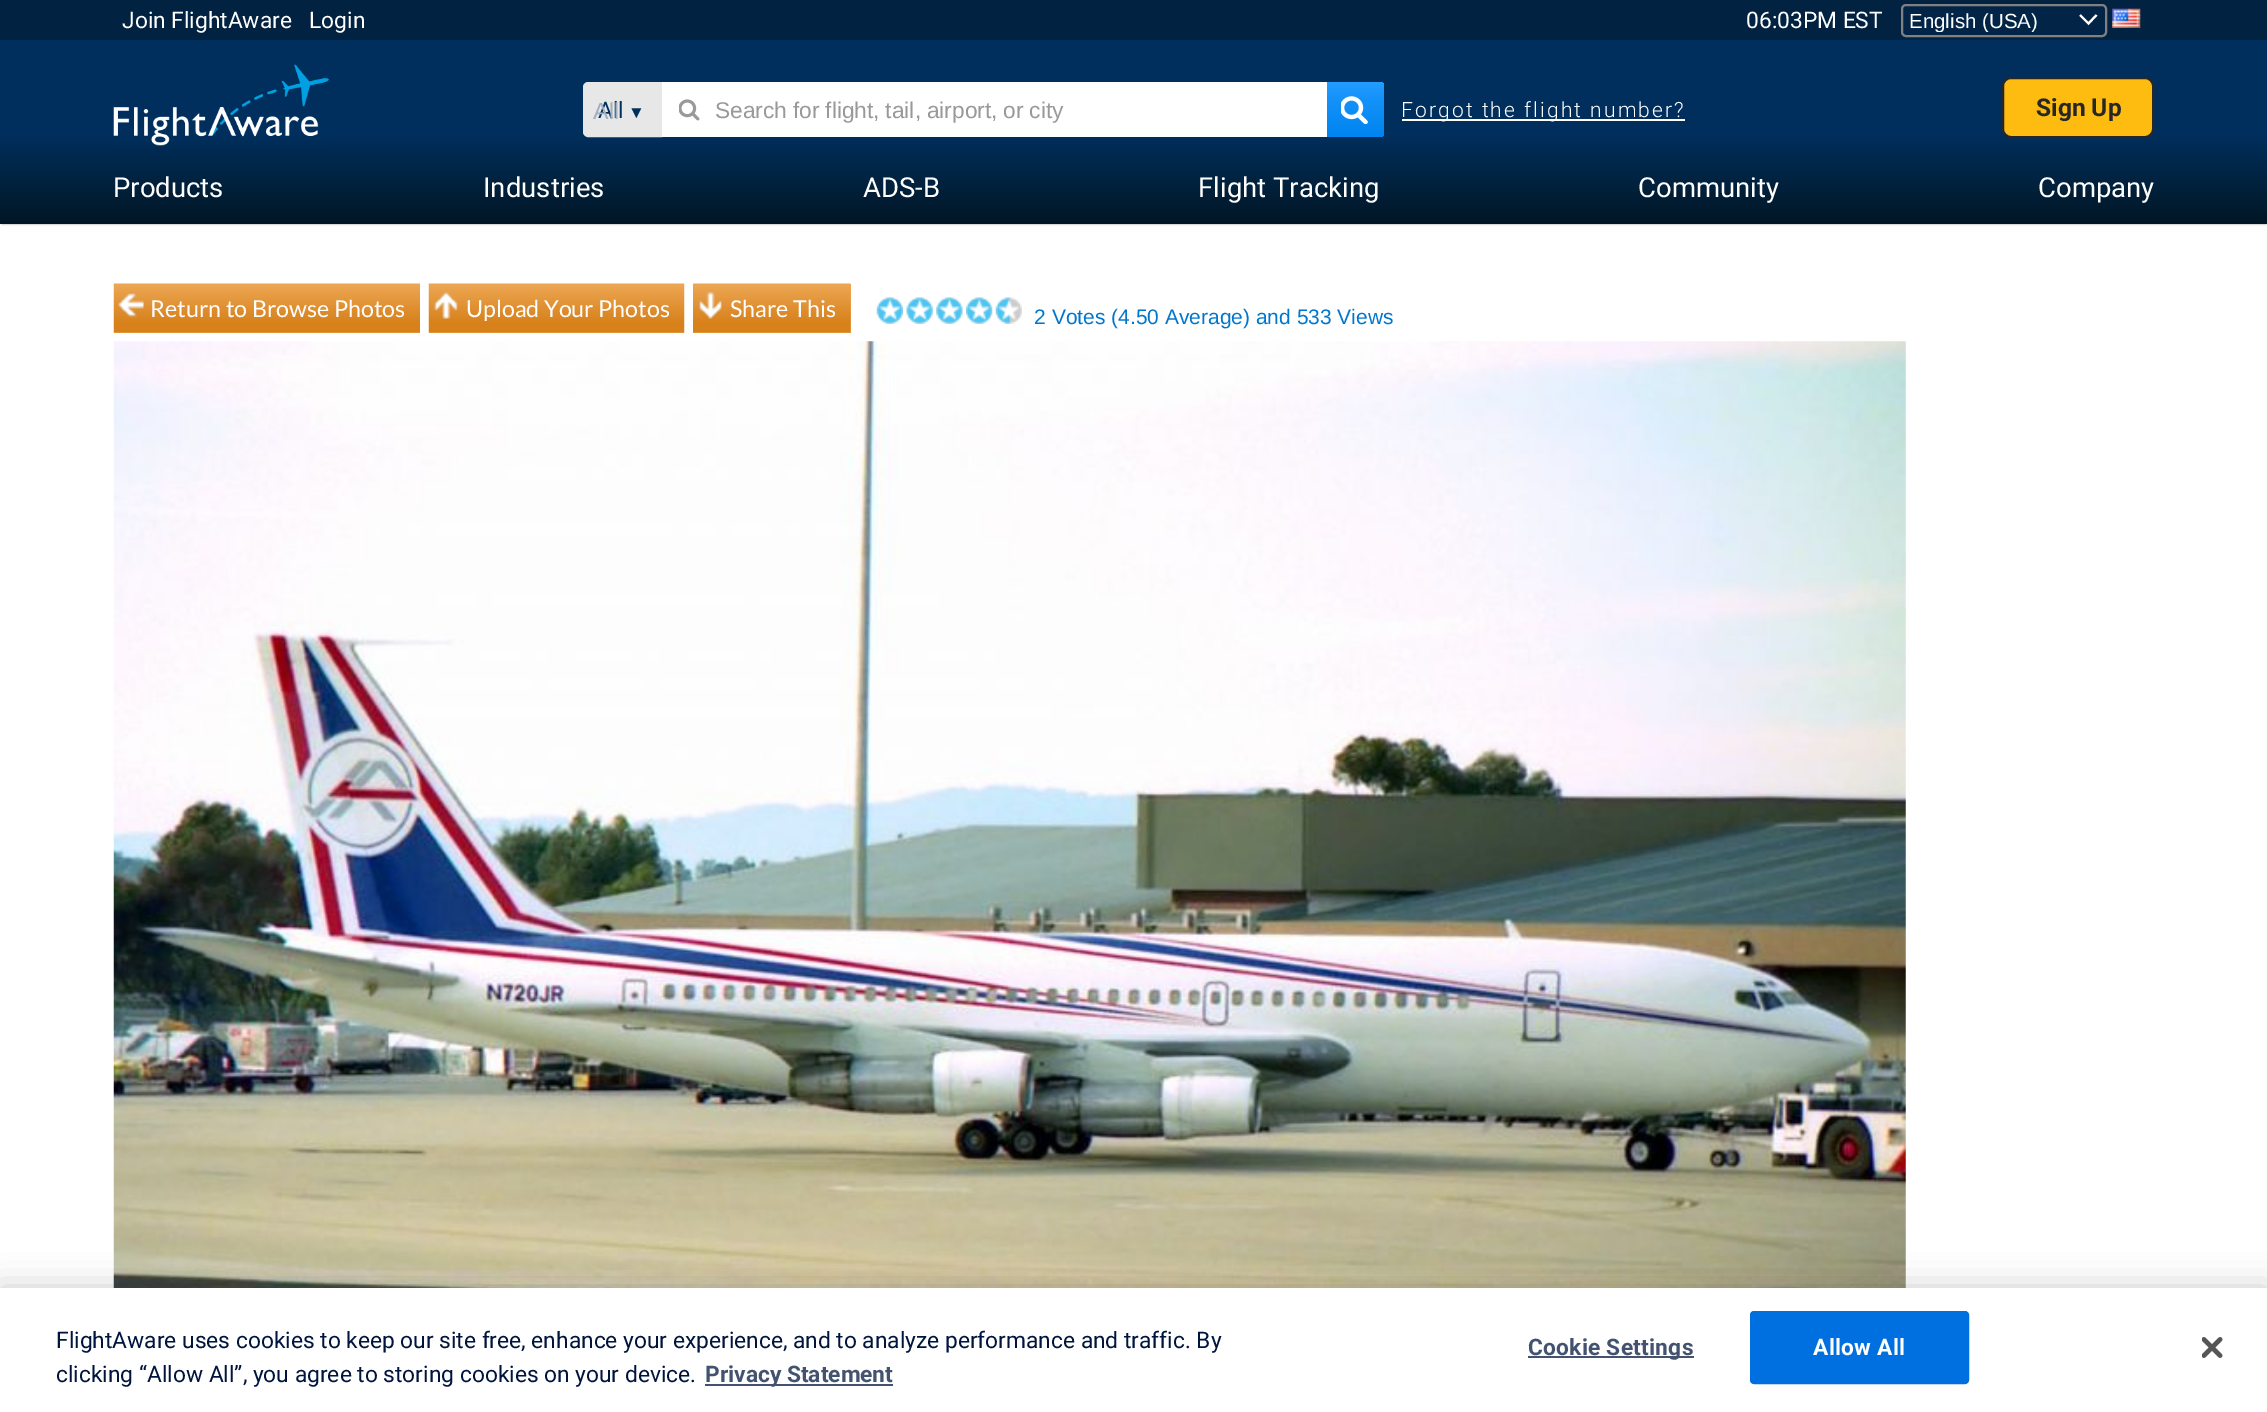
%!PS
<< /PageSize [2267 1412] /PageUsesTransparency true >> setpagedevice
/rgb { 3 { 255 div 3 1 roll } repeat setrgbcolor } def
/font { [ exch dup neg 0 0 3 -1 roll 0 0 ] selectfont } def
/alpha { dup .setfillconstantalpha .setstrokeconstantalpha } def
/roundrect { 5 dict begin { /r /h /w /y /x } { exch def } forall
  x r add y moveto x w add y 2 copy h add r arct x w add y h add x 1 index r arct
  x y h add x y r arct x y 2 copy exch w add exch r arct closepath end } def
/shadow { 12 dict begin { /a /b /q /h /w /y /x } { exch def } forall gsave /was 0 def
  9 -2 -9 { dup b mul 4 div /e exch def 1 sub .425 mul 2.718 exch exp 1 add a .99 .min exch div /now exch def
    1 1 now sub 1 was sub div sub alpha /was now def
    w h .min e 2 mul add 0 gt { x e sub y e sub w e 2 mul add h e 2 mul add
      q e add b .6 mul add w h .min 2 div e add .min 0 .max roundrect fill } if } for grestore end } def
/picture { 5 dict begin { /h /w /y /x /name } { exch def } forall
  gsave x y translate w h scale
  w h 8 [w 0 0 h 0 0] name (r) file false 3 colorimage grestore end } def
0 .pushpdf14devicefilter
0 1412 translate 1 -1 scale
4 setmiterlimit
255 255 255 rgb
0 0 2267 1412 rectfill
136 136 136 rgb
2 4 2264 220 0 1 1 shadow
gsave 0 40 moveto 2267 40 lineto 2267 224 lineto 0 224 lineto closepath clip newpath
<< /ShadingType 2 /ColorSpace /DeviceRGB /Coords [1134 0 1134 224] /Extend [true true] /Function << /FunctionType 3 /Domain [0 1] /Functions [<< /FunctionType 2 /Domain [0 1] /C0 [0 0.184 0.365] /C1 [0 0.184 0.365] /N 1 >> << /FunctionType 2 /Domain [0 1] /C0 [0 0.184 0.365] /C1 [0.008 0.086 0.141] /N 1 >>] /Bounds [0.6] /Encode [0 1 0 1] >> >> shfill grestore
2 34 65 rgb
0 0 2267 40 rectfill
2 37 71 rgb
1901 4 206 33 5 roundrect fill
255 255 255 rgb
2.1 setlinewidth
2080 15 moveto 2088.5 23.5 lineto 2096.5 15 lineto stroke
128 128 128 rgb
2 setlinewidth
1902 5 204 31 4 roundrect stroke
(img/1.rgb) 2112 8 29 20 picture
(img/2.rgb) 113 64 216 82 picture
231 231 231 rgb
588 83 moveto 661 83 lineto 661 136 lineto 588 136 lineto 586 136 584 134 584 132 curveto 584 87 lineto 584 85 586 83 588 83 curveto closepath gsave fill grestore
stroke
255 255 255 rgb
662 82 665 55 rectfill
(img/3.rgb) 679 99 21 22 picture
gsave 1327 82 moveto 1379 82 lineto 1382 82 1384 84 1384 87 curveto 1384 132 lineto 1384 135 1382 137 1379 137 curveto 1327 137 lineto closepath clip newpath
<< /ShadingType 2 /ColorSpace /DeviceRGB /Coords [1355 137 1355 82] /Extend [true true] /Function << /FunctionType 3 /Domain [0 1] /Functions [<< /FunctionType 2 /Domain [0 1] /C0 [0 0.518 0.941] /C1 [0.071 0.569 0.973] /N 1 >> << /FunctionType 2 /Domain [0 1] /C0 [0.071 0.569 0.973] /C1 [0.141 0.616 1] /N 1 >>] /Bounds [0.66] /Encode [0 1 0 1] >> >> shfill grestore
(img/4.rgb) 1341 96 27 28 picture
1402 119 283 2 rectfill
254 188 17 rgb
2003 78 150 59 8 roundrect gsave fill grestore
39 39 39 rgb
stroke
237 166 83 rgb
114 332 306 1 rectfill
(img/5.rgb) 113 283 307 50 picture
(img/6.rgb) 118 293 26 25 picture
429 332 255 1 rectfill
(img/7.rgb) 428 283 257 50 picture
(img/8.rgb) 433 292 25 27 picture
693 284 158 49 rectfill
(img/9.rgb) 693 283 158 50 picture
(img/10.rgb) 698 292 24 27 picture
(img/11.rgb) 876 297 27 27 picture
(img/12.rgb) 906 297 27 27 picture
(img/13.rgb) 936 297 27 27 picture
(img/14.rgb) 966 297 27 27 picture
(img/15.rgb) 995 297 27 27 picture
(img/16.rgb) 113 341 1793 947 picture
0 0 0 rgb
0 1288 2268 124 0 16 0.2 shadow
[
  [0 1288 2267 124 255 255 255]
  [705 1384 188 2 66 82 111]
  [1528 1356 166 2 66 82 111]
] { aload pop rgb rectfill } forall
0 112 224 rgb
1751 1312 217 71 3 roundrect gsave fill grestore
stroke
(img/17.rgb) 2202 1337 21 21 picture
/Roboto-Regular 22.75 font
255 255 255 rgb
[
  [(Join FlightAware) 122 28]
  [(Login) 309 28]
  [(06:03PM EST) 1746 28]
] { aload pop moveto show } forall
gsave
1909 9 189 23 rectclip
/LiberationSans-Regular 20.5 font
1909 28 moveto (English \(USA\)) show
grestore
0 47 93 rgb
598 118 moveto (All) show
/LiberationSans-Regular 17 font
628 118 moveto (▼) show
/LiberationSans-Regular 23.25 font
160 174 189 rgb
593 119 moveto (All) show
/LiberationSans-Regular 22.75 font
153 153 153 rgb
715 118 moveto -0.5 0 32 (Search for flight, tail, airport, or city) widthshow
/Roboto-Light 21 font
255 255 255 rgb
1401 117 moveto 2.1 0 (Forgot the flight number?) ashow
/Roboto-Bold 24.5 font
39 39 39 rgb
2036 116 moveto (Sign Up) show
/Roboto-Regular 27.5 font
255 255 255 rgb
[
  [(Products) 113 197]
  [(Industries) 483 197]
  [(ADS-B) 863 197]
  [(Flight Tracking) 1198 197]
  [(Community) 1638 197]
  [(Company) 2038 197]
] { aload pop moveto show } forall
/Lato-Regular 23.25 font
[
  [(Return to Browse Photos) 150 317]
  [(Upload Your Photos) 466 317]
  [(Share This) 730 317]
] { aload pop moveto show } forall
/LiberationSans-Regular 21 font
0 119 204 rgb
1034 324 moveto (2 Votes \(4.50 Average\) and 533 Views) show
/Roboto-Regular 22.75 font
0 21 61 rgb
56 1348 moveto (FlightAware uses cookies to keep our site free, enhance your experience, and to analyze performance and traffic. By) show
56 1382 moveto (clicking “Allow All”, you agree to storing cookies on your device.) show
/Roboto-Bold 22.75 font
66 82 111 rgb
705 1382 moveto (Privacy Statement) show
1528 1355 moveto 0.25 0 (Cookie Settings) ashow
255 255 255 rgb
1813 1355 moveto 0.25 0 (Allow All) ashow
.poppdf14devicefilter showpage
